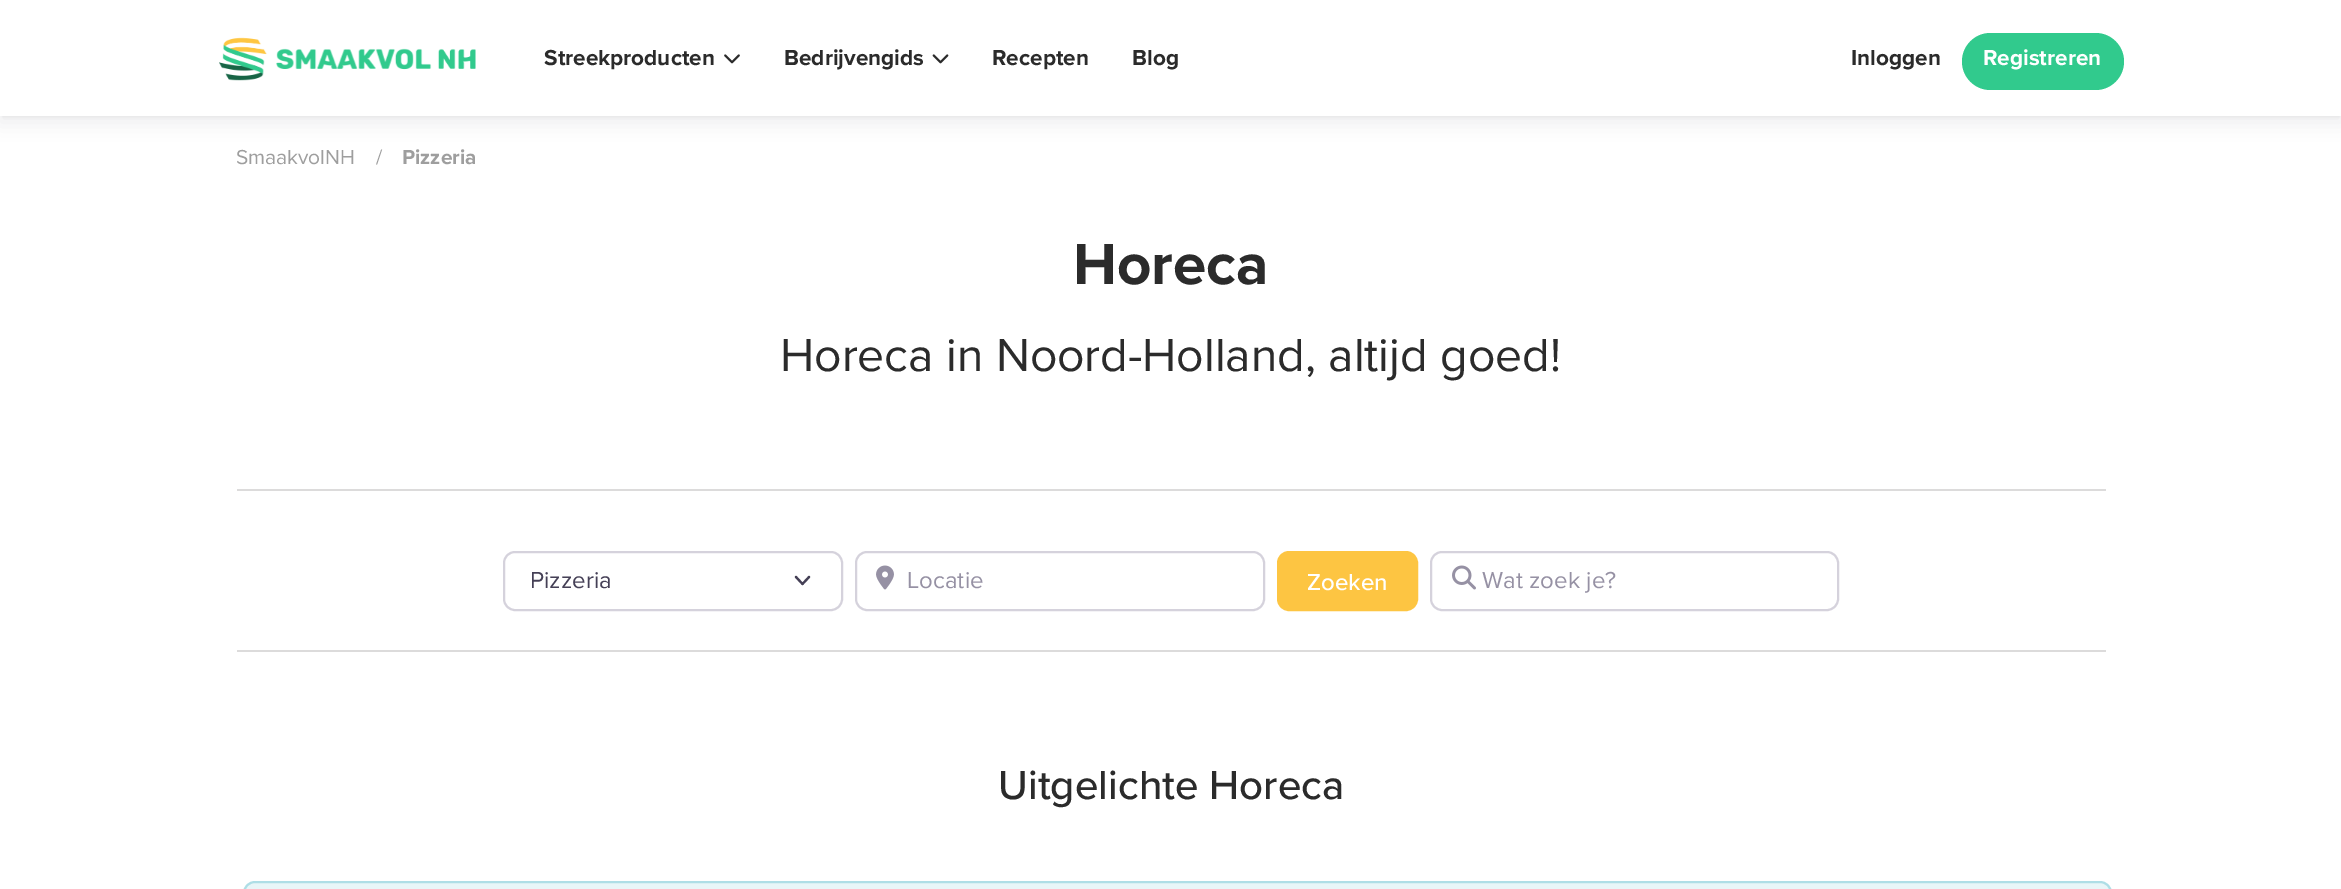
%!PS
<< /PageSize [2341 889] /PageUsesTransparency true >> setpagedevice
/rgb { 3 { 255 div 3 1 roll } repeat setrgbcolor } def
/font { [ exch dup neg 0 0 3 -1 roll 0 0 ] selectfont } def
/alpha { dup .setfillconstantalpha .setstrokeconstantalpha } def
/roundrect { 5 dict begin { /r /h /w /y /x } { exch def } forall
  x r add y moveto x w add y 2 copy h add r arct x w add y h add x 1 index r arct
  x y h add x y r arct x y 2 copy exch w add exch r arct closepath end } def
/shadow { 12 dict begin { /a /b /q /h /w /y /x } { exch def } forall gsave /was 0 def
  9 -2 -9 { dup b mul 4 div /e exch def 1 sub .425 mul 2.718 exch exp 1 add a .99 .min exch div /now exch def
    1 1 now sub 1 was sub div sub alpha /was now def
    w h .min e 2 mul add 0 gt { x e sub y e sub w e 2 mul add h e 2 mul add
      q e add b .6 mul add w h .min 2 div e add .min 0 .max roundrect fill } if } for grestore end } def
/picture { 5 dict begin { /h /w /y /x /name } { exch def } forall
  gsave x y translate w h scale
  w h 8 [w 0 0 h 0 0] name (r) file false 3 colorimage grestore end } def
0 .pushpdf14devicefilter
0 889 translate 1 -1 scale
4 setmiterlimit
255 255 255 rgb
0 0 2341 889 rectfill
31 27 45 rgb
0 6 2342 116 0 9 0.08 shadow
3 6 2336 110 0 1.5 0.08 shadow
255 255 255 rgb
0 0 2341 116 rectfill
(img/1.rgb) 219 37 257 44 picture
(img/2.rgb) 724 54 16 10 picture
(img/3.rgb) 932 54 17 10 picture
49 202 141 rgb
1962 33 162 57 28.5 roundrect fill
220 219 219 rgb
237 489 1869 2 rectfill
237 650 1869 2 rectfill
69 64 86 rgb
2.2 setlinewidth
1 setlinecap
1 setlinejoin
796 577 moveto 802.5 584 lineto 809 577 lineto stroke
213 210 220 rgb
2 setlinewidth
0 setlinecap
0 setlinejoin
504 552 338 58 11 roundrect stroke
856 552 408 58 11 roundrect stroke
(img/4.rgb) 876 565 18 25 picture
253 197 66 rgb
1278 552 139 58 11 roundrect gsave fill grestore
stroke
213 210 220 rgb
1431 552 407 58 11 roundrect stroke
(img/5.rgb) 1452 565 24 25 picture
232 246 248 rgb
244 882 1867 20 11 roundrect gsave fill grestore
174 222 230 rgb
stroke
/ProximaNova-Bold 22.5 font
43 43 43 rgb
[
  [(Streekproducten) 544 65]
  [(Bedrijvengids) 784 65]
  [(Recepten) 992 65]
  [(Blog) 1132 65]
  [(Inloggen) 1851 65]
] { aload pop moveto show } forall
255 255 255 rgb
1983 65 moveto (Registreren) show
/ProximaNova-Regular 21 font
158 158 158 rgb
236 164 moveto (SmaakvolNH) show
376 164 moveto (/) show
/ProximaNova-Bold 21 font
402 164 moveto (Pizzeria) show
/ProximaNova-Bold 60 font
43 43 43 rgb
1073 284 moveto (Horeca) show
/ProximaNova-Regular 48 font
780 371 moveto (Horeca in Noord-Holland, altijd goed!) show
/ProximaNova-Regular 24 font
69 64 86 rgb
530 588 moveto (Pizzeria) show
150 145 164 rgb
907 588 moveto (Locatie) show
/ProximaNova-Medium 24 font
255 255 255 rgb
1307 590 moveto (Zoeken) show
/ProximaNova-Regular 24 font
150 145 164 rgb
1482 588 moveto (Wat zoek je?) show
/ProximaNova-Medium 42 font
43 43 43 rgb
998 799 moveto (Uitgelichte Horeca) show
.poppdf14devicefilter showpage
